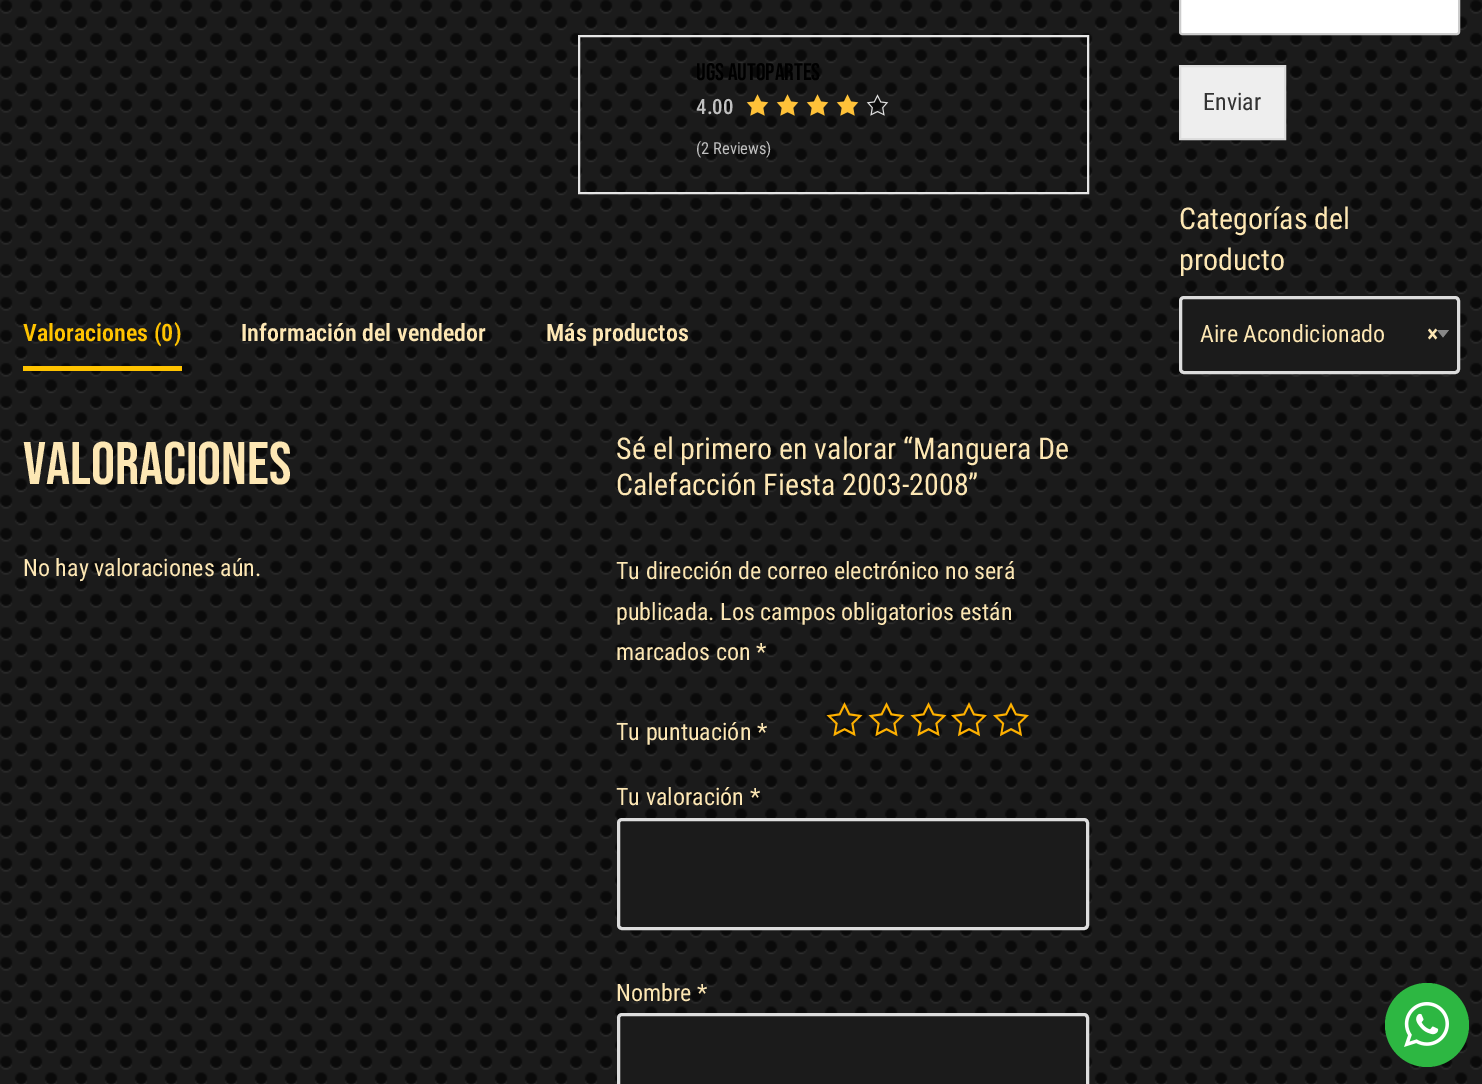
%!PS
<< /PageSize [1482 1084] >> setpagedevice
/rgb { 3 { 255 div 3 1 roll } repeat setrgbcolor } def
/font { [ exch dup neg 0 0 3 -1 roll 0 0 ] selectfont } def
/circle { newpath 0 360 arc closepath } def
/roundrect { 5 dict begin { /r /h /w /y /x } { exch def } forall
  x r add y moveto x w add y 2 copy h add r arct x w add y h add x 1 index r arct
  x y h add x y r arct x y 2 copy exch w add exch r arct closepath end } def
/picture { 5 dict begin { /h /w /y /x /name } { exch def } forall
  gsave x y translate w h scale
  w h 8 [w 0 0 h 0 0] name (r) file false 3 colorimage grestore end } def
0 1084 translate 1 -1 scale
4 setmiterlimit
255 255 255 rgb
0 0 1482 1084 rectfill
(img/1.rgb) 0 0 1482 1084 picture
231 231 231 rgb
2 setlinewidth
579 36 509 157 rectstroke
(img/2.rgb) 746 94 23 22 picture
(img/2.rgb) 776 94 23 22 picture
(img/2.rgb) 806 94 23 22 picture
(img/2.rgb) 836 94 23 22 picture
(img/3.rgb) 866 94 23 22 picture
255 195 0 rgb
23 366 159 5 rectfill
(img/4.rgb) 826 702 37 35 picture
(img/5.rgb) 868 702 37 35 picture
(img/6.rgb) 910 702 37 35 picture
(img/7.rgb) 951 702 36 35 picture
(img/8.rgb) 993 702 36 35 picture
27 27 27 rgb
618.5 819.5 469 109 3.5 roundrect gsave fill grestore
221 221 221 rgb
3 setlinewidth
stroke
27 27 27 rgb
618.5 1014.5 469 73 3.5 roundrect gsave fill grestore
221 221 221 rgb
stroke
255 255 255 rgb
1180 -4 279 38 2 roundrect gsave fill grestore
204 204 204 rgb
2 setlinewidth
stroke
238 238 238 rgb
1180 66 moveto 1285 66 lineto 1285 139 lineto 1180 139 lineto closepath gsave fill grestore
221 221 221 rgb
stroke
27 27 27 rgb
1180.5 297.5 278 75 3.5 roundrect gsave fill grestore
221 221 221 rgb
3 setlinewidth
stroke
45 183 66 rgb
1427 1025 42 circle fill
(img/9.rgb) 1404 1002 45 45 picture
/BebasNeue-Regular 24 font
0 0 0 rgb
696 80 moveto (ugs autopartes) show
/RobotoCondensed-Medium 21 font
193 193 193 rgb
696 114 moveto (4.00) show
/RobotoCondensed-Regular 16.5 font
696 154 moveto (\(2 Reviews\)) show
/RobotoCondensed-SemiBold 24 font
255 195 0 rgb
23 341 moveto (Valoraciones \(0\)) show
253 231 180 rgb
241 341 moveto (Información del vendedor) show
546 341 moveto (Más productos) show
/BebasNeue-Regular 60 font
23 484 moveto (Valoraciones) show
/RobotoCondensed-Regular 24 font
23 576 moveto (No hay valoraciones aún.) show
/RobotoCondensed-Regular 30 font
616 459 moveto (Sé el primero en valorar “Manguera De) show
616 495 moveto (Calefacción Fiesta 2003-2008”) show
/RobotoCondensed-Regular 24 font
[
  [(Tu dirección de correo electrónico no será) 616 579]
  [(publicada. Los campos obligatorios están) 616 620]
  [(marcados con *) 616 660]
  [(Tu puntuación *) 616 740]
  [(Tu valoración *) 616 805]
  [(Nombre *) 616 1001]
] { aload pop moveto show } forall
51 51 51 rgb
1203 110 moveto (Enviar) show
/RobotoCondensed-Regular 30 font
253 231 180 rgb
1179 229 moveto (Categorías del) show
1179 270 moveto (producto) show
/RobotoCondensed-Regular 24 font
1200 342 moveto (Aire Acondicionado) show
/RobotoCondensed-SemiBold 24 font
1427 342 moveto (×) show
136 136 136 rgb
1437 330 moveto 1449 330 lineto 1443 337.5 lineto closepath fill
showpage
